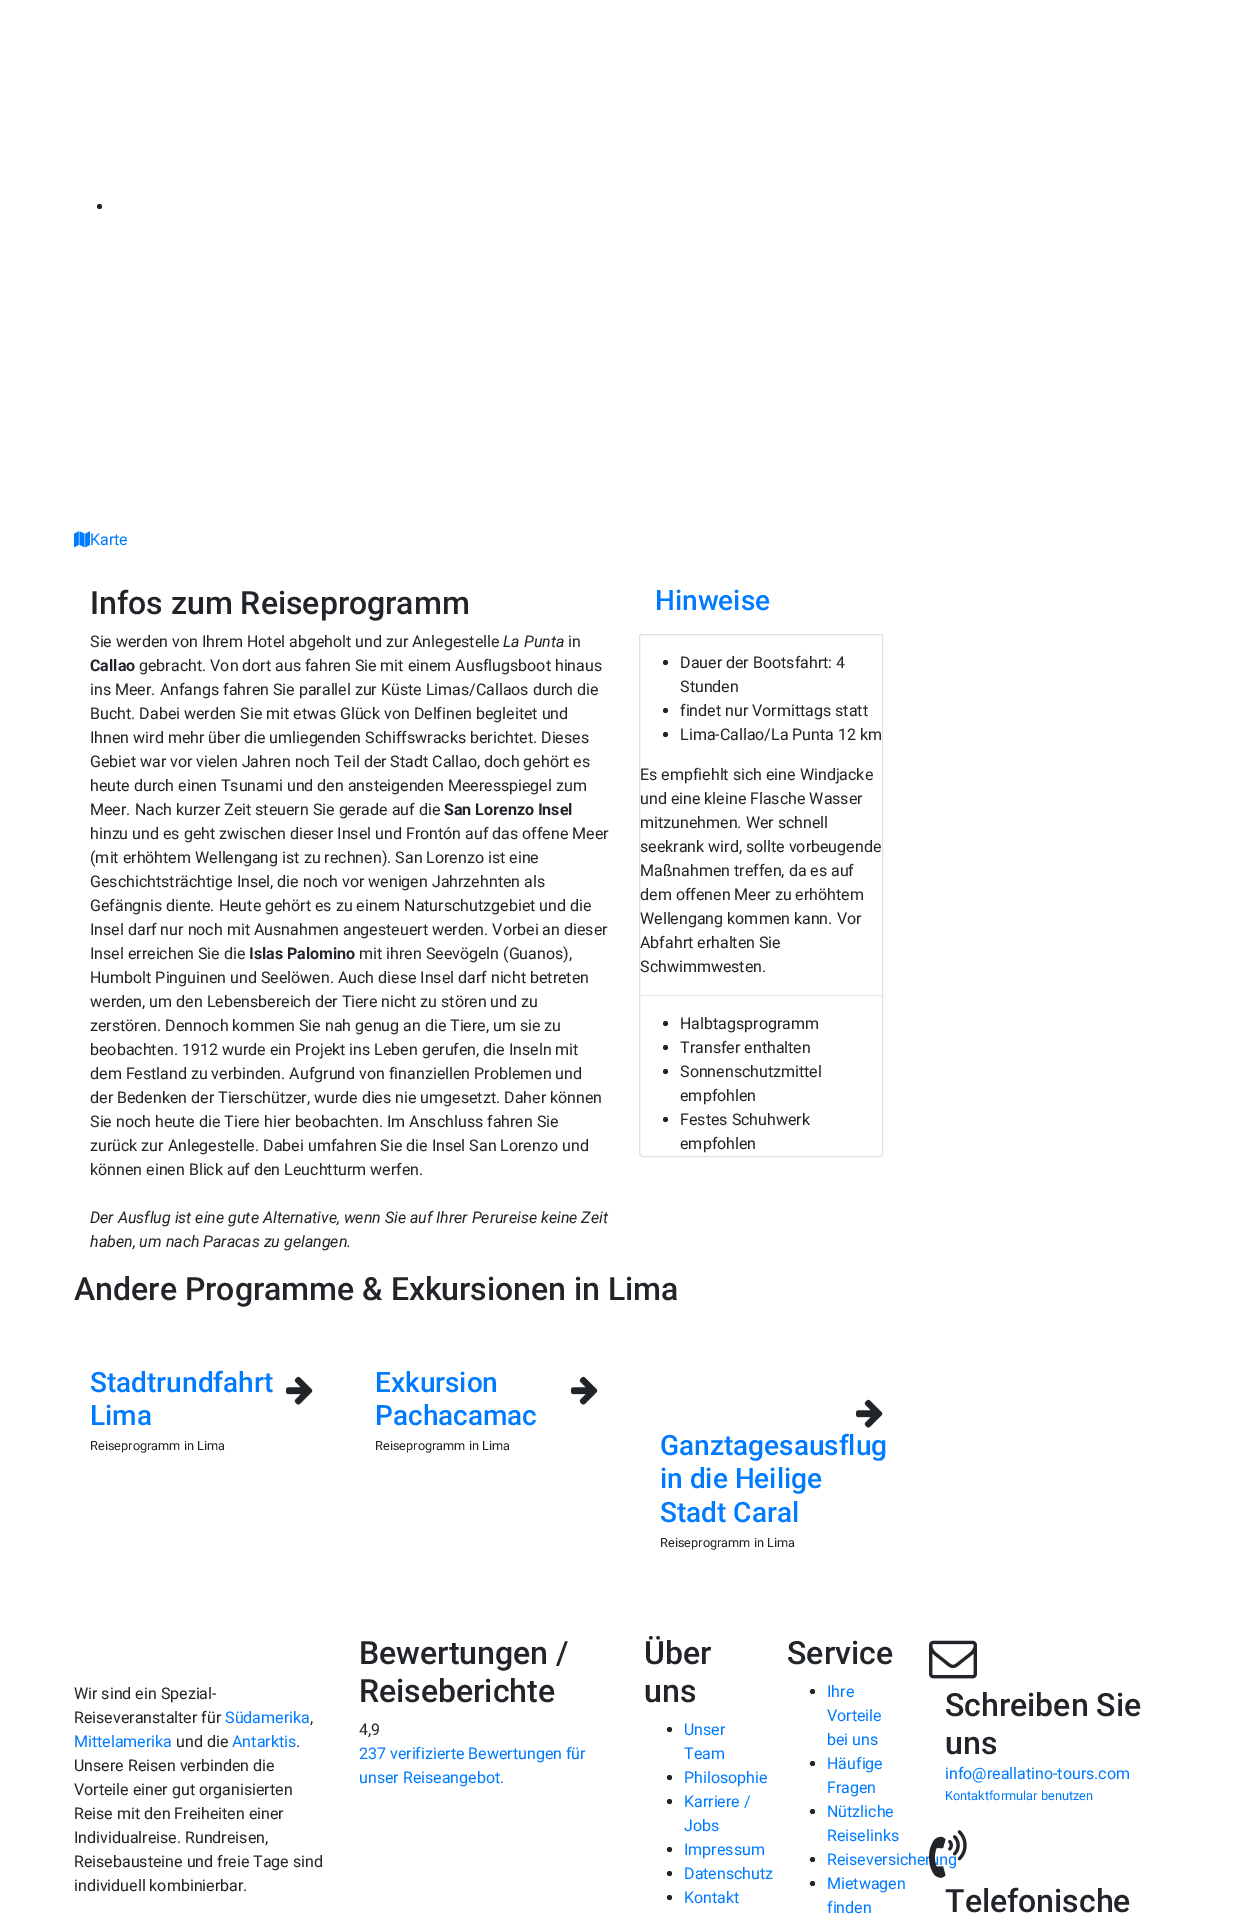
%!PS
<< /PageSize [1258 1928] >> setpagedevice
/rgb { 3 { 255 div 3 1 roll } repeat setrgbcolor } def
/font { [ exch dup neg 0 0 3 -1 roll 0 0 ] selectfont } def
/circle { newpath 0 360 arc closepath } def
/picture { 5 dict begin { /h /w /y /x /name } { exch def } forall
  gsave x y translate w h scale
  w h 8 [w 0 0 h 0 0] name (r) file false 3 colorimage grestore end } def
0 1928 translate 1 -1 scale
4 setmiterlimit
255 255 255 rgb
0 0 1258 1928 rectfill
33 37 41 rgb
99.5 206.5 2.5 circle fill
(img/1.rgb) 74 531 16 17 picture
222 226 230 rgb
639.5 634.5 moveto 882.5 634.5 lineto 882.5 1153 lineto 882.5 1155 881 1156.5 879 1156.5 curveto 643 1156.5 lineto 641 1156.5 639.5 1155 639.5 1153 curveto closepath stroke
33 37 41 rgb
665.5 662.5 2.5 circle fill
665.5 710.5 2.5 circle fill
665.5 734.5 2.5 circle fill
230 230 230 rgb
640 995 242 1 rectfill
33 37 41 rgb
665.5 1023.5 2.5 circle fill
665.5 1047.5 2.5 circle fill
665.5 1071.5 2.5 circle fill
665.5 1119.5 2.5 circle fill
(img/2.rgb) 286 1376 27 29 picture
(img/2.rgb) 571 1376 27 29 picture
(img/2.rgb) 856 1399 27 29 picture
669.5 1729.5 2.5 circle fill
669.5 1777.5 2.5 circle fill
669.5 1801.5 2.5 circle fill
669.5 1849.5 2.5 circle fill
669.5 1873.5 2.5 circle fill
669.5 1897.5 2.5 circle fill
812.5 1691.5 2.5 circle fill
812.5 1763.5 2.5 circle fill
812.5 1811.5 2.5 circle fill
812.5 1859.5 2.5 circle fill
812.5 1883.5 2.5 circle fill
(img/3.rgb) 929 1640 48 39 picture
/Roboto-Regular 16 font
0 123 255 rgb
90 545 moveto (Karte) show
/Roboto-Medium 32 font
33 37 41 rgb
90 614 moveto (Infos zum Reiseprogramm) show
/Roboto-Regular 16 font
90 647 moveto (Sie werden von Ihrem Hotel abgeholt und zur Anlegestelle) show
/Roboto-Italic 16 font
503 647 moveto (La Punta) show
/Roboto-Regular 16 font
568 647 moveto (in) show
/Roboto-Bold 16 font
90 671 moveto (Callao) show
/Roboto-Regular 16 font
[
  [(gebracht. Von dort aus fahren Sie mit einem Ausflugsboot hinaus) 139 671]
  [(ins Meer. Anfangs fahren Sie parallel zur Küste Limas/Callaos durch die) 90 695]
  [(Bucht. Dabei werden Sie mit etwas Glück von Delfinen begleitet und) 90 719]
  [(Ihnen wird mehr über die umliegenden Schiffswracks berichtet. Dieses) 90 743]
  [(Gebiet war vor vielen Jahren noch Teil der Stadt Callao, doch gehört es) 90 767]
  [(heute durch einen Tsunami und den ansteigenden Meeresspiegel zum) 90 791]
  [(Meer. Nach kurzer Zeit steuern Sie gerade auf die) 90 815]
] { aload pop moveto show } forall
/Roboto-Bold 16 font
444 815 moveto (San Lorenzo Insel) show
/Roboto-Regular 16 font
[
  [(hinzu und es geht zwischen dieser Insel und Frontón auf das offene Meer) 90 839]
  [(\(mit erhöhtem Wellengang ist zu rechnen\). San Lorenzo ist eine) 90 863]
  [(Geschichtsträchtige Insel, die noch vor wenigen Jahrzehnten als) 90 887]
  [(Gefängnis diente. Heute gehört es zu einem Naturschutzgebiet und die) 90 911]
  [(Insel darf nur noch mit Ausnahmen angesteuert werden. Vorbei an dieser) 90 935]
  [(Insel erreichen Sie die) 90 959]
] { aload pop moveto show } forall
/Roboto-Bold 16 font
249 959 moveto (Islas Palomino) show
/Roboto-Regular 16 font
[
  [(mit ihren Seevögeln \(Guanos\),) 359 959]
  [(Humbolt Pinguinen und Seelöwen. Auch diese Insel darf nicht betreten) 90 983]
  [(werden, um den Lebensbereich der Tiere nicht zu stören und zu) 90 1007]
  [(zerstören. Dennoch kommen Sie nah genug an die Tiere, um sie zu) 90 1031]
  [(beobachten. 1912 wurde ein Projekt ins Leben gerufen, die Inseln mit) 90 1055]
  [(dem Festland zu verbinden. Aufgrund von finanziellen Problemen und) 90 1079]
  [(der Bedenken der Tierschützer, wurde dies nie umgesetzt. Daher können) 90 1103]
  [(Sie noch heute die Tiere hier beobachten. Im Anschluss fahren Sie) 90 1127]
  [(zurück zur Anlegestelle. Dabei umfahren Sie die Insel San Lorenzo und) 90 1151]
  [(können einen Blick auf den Leuchtturm werfen.) 90 1175]
] { aload pop moveto show } forall
/Roboto-Italic 16 font
90 1223 moveto (Der Ausflug ist eine gute Alternative, wenn Sie auf Ihrer Perureise keine Zeit) show
90 1247 moveto (haben, um nach Paracas zu gelangen.) show
/Roboto-Medium 28 font
0 123 255 rgb
655 610 moveto (Hinweise) show
/Roboto-Regular 16 font
33 37 41 rgb
[
  [(Dauer der Bootsfahrt: 4) 680 668]
  [(Stunden) 680 692]
  [(findet nur Vormittags statt) 680 716]
  [(Lima-Callao/La Punta 12 km) 680 740]
  [(Es empfiehlt sich eine Windjacke) 640 780]
  [(und eine kleine Flasche Wasser) 640 804]
  [(mitzunehmen. Wer schnell) 640 828]
  [(seekrank wird, sollte vorbeugende) 640 852]
  [(Maßnahmen treffen, da es auf) 640 876]
  [(dem offenen Meer zu erhöhtem) 640 900]
  [(Wellengang kommen kann. Vor) 640 924]
  [(Abfahrt erhalten Sie) 640 948]
  [(Schwimmwesten.) 640 972]
  [(Halbtagsprogramm) 680 1029]
  [(Transfer enthalten) 680 1053]
  [(Sonnenschutzmittel) 680 1077]
  [(empfohlen) 680 1101]
  [(Festes Schuhwerk) 680 1125]
  [(empfohlen) 680 1149]
] { aload pop moveto show } forall
/Roboto-Medium 32 font
74 1300 moveto (Andere Programme & Exkursionen in Lima) show
/Roboto-Medium 28 font
0 123 255 rgb
90 1392 moveto (Stadtrundfahrt) show
90 1425 moveto (Lima) show
/Roboto-Regular 12.75 font
33 37 41 rgb
90 1450 moveto (Reiseprogramm in Lima) show
/Roboto-Medium 28 font
0 123 255 rgb
375 1392 moveto (Exkursion) show
375 1425 moveto (Pachacamac) show
/Roboto-Regular 12.75 font
33 37 41 rgb
375 1450 moveto (Reiseprogramm in Lima) show
/Roboto-Medium 28 font
0 123 255 rgb
[
  [(Ganztagesausflug) 660 1455]
  [(in die Heilige) 660 1488]
  [(Stadt Caral) 660 1522]
] { aload pop moveto show } forall
/Roboto-Regular 12.75 font
33 37 41 rgb
660 1547 moveto (Reiseprogramm in Lima) show
/Roboto-Regular 16 font
74 1699 moveto (Wir sind ein Spezial-) show
74 1723 moveto (Reiseveranstalter für) show
0 123 255 rgb
225 1723 moveto (Südamerika) show
33 37 41 rgb
310 1723 moveto (,) show
0 123 255 rgb
74 1747 moveto (Mittelamerika) show
33 37 41 rgb
176 1747 moveto (und die) show
0 123 255 rgb
232 1747 moveto (Antarktis) show
33 37 41 rgb
[
  [(.) 296 1747]
  [(Unsere Reisen verbinden die) 74 1771]
  [(Vorteile einer gut organisierten) 74 1795]
  [(Reise mit den Freiheiten einer) 74 1819]
  [(Individualreise. Rundreisen,) 74 1843]
  [(Reisebausteine und freie Tage sind) 74 1867]
  [(individuell kombinierbar.) 74 1891]
] { aload pop moveto show } forall
/Roboto-Medium 32 font
359 1664 moveto (Bewertungen /) show
359 1702 moveto (Reiseberichte) show
/Roboto-Regular 16 font
359 1735 moveto (4,9) show
0 123 255 rgb
359 1759 moveto (237 verifizierte Bewertungen für) show
359 1783 moveto (unser Reiseangebot.) show
/Roboto-Medium 32 font
33 37 41 rgb
644 1664 moveto (Über) show
644 1702 moveto (uns) show
/Roboto-Regular 16 font
0 123 255 rgb
[
  [(Unser) 684 1735]
  [(Team) 684 1759]
  [(Philosophie) 684 1783]
  [(Karriere /) 684 1807]
  [(Jobs) 684 1831]
  [(Impressum) 684 1855]
  [(Datenschutz) 684 1879]
  [(Kontakt) 684 1903]
] { aload pop moveto show } forall
/Roboto-Medium 32 font
33 37 41 rgb
787 1664 moveto (Service) show
/Roboto-Regular 16 font
0 123 255 rgb
[
  [(Ihre) 827 1697]
  [(Vorteile) 827 1721]
  [(bei uns) 827 1745]
  [(Häufige) 827 1769]
  [(Fragen) 827 1793]
  [(Nützliche) 827 1817]
  [(Reiselinks) 827 1841]
  [(Reiseversicherung) 827 1865]
  [(Mietwagen) 827 1889]
  [(finden) 827 1913]
] { aload pop moveto show } forall
/Roboto-Medium 32 font
33 37 41 rgb
945 1716 moveto (Schreiben Sie) show
945 1754 moveto (uns) show
/Roboto-Regular 16 font
0 123 255 rgb
945 1779 moveto (info@reallatino-tours.com) show
/Roboto-Regular 12.75 font
945 1800 moveto (Kontaktformular benutzen) show
(img/4.rgb) 929 1830 38 48 picture
/Roboto-Medium 32 font
33 37 41 rgb
945 1912 moveto (Telefonische) show
showpage
